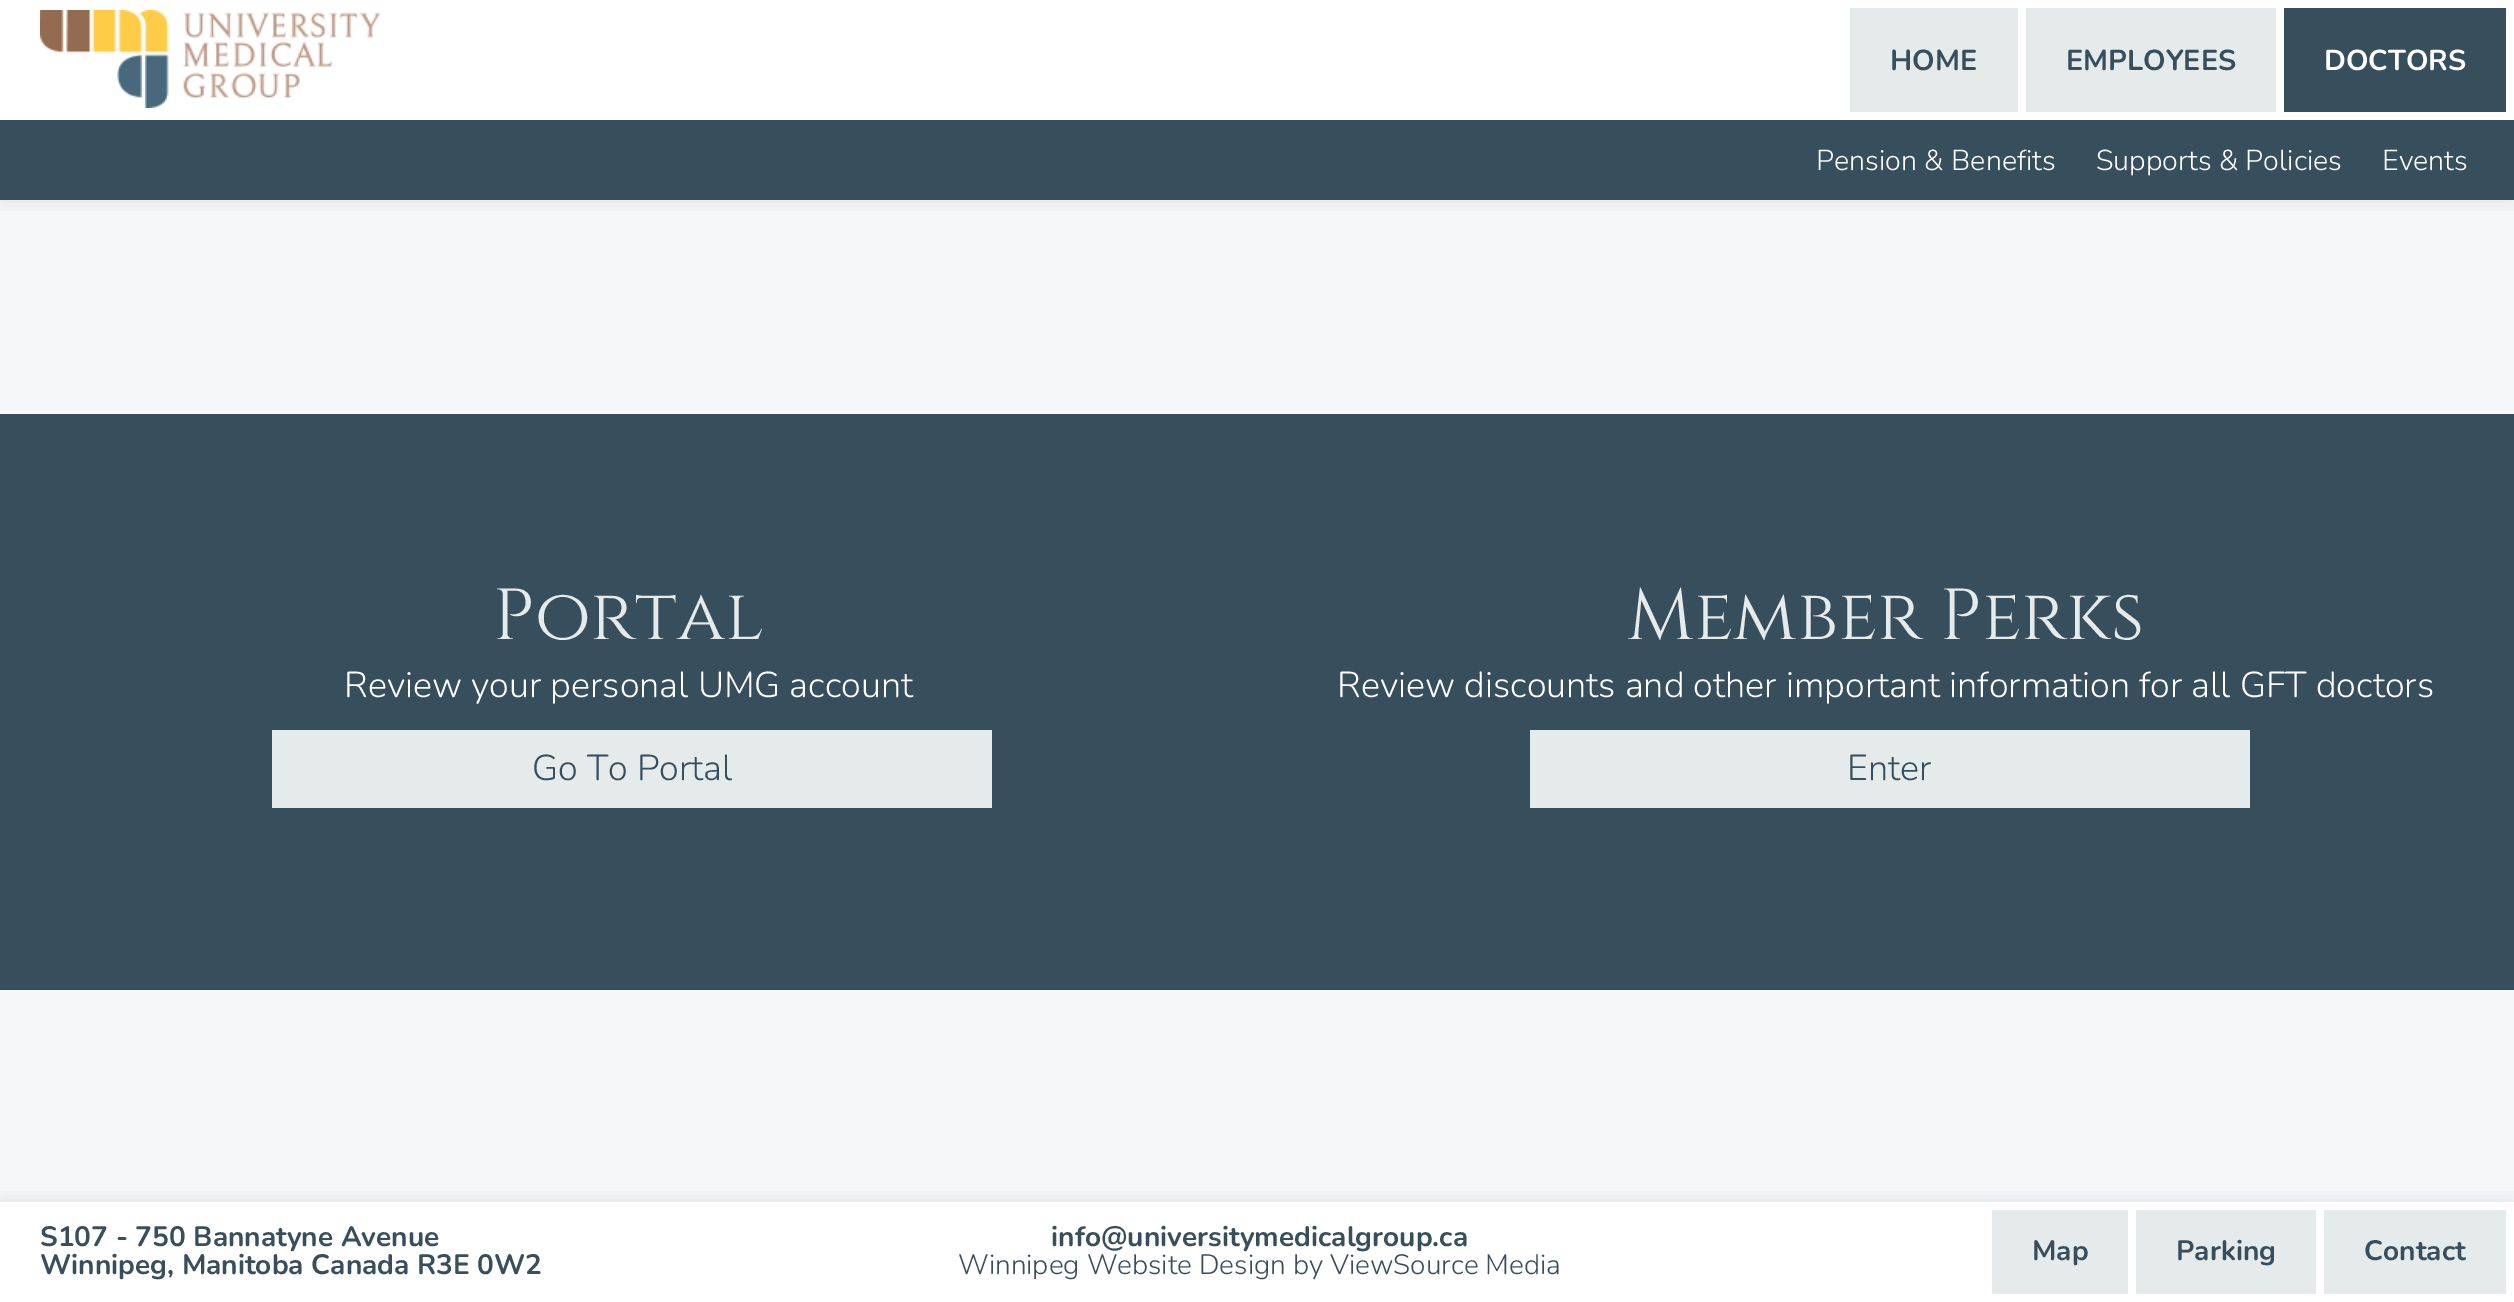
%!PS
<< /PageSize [2514 1302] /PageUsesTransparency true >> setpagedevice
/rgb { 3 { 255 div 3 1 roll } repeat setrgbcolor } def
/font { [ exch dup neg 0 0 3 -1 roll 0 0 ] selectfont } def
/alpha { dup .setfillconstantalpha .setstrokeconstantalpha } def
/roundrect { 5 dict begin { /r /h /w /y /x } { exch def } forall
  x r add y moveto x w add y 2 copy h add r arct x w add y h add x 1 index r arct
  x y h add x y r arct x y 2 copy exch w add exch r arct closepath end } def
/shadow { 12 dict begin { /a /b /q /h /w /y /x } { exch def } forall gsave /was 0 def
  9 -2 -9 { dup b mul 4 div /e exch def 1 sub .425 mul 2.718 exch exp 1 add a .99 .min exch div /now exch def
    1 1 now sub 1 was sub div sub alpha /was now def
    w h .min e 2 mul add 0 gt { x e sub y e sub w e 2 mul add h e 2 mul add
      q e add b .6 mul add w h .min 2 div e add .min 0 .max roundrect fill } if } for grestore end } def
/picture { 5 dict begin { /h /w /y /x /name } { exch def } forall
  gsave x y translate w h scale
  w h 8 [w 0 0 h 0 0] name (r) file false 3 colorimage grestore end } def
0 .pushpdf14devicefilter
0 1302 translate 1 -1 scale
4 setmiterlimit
255 255 255 rgb
0 0 2514 1302 rectfill
246 247 248 rgb
0 200 2514 1002 rectfill
gsave
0 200 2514 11 rectclip
72 105 125 rgb
0 0 2514 200 0 10 0.15 shadow
grestore
(img/1.rgb) 40 10 340 98 picture
[
  [1850 8 168 104 229 234 235]
  [2026 8 250 104 229 234 235]
  [2284 8 222 104 55 78 93]
  [0 120 2514 80 55 78 93]
  [0 414 2514 576 55 78 93]
  [272 730 720 78 229 234 235]
  [1530 730 720 78 229 234 235]
] { aload pop rgb rectfill } forall
gsave
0 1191 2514 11 rectclip
72 105 125 rgb
0 1202 2514 100 0 10 0.15 shadow
grestore
[
  [1992 1210 136 84 229 234 235]
  [2136 1210 180 84 229 234 235]
  [2324 1210 182 84 229 234 235]
] { aload pop rgb rectfill } forall
/Nunito-Bold 28.75 font
55 78 93 rgb
1890 70 moveto (HOME) show
2066 70 moveto (EMPLOYEES) show
255 255 255 rgb
2324 70 moveto (DOCTORS) show
/Nunito-Light 28.75 font
[
  [(Pension & Benefits) 1816 170]
  [(Supports & Policies) 2096 170]
  [(Events) 2382 170]
] { aload pop moveto show } forall
/Cinzel-Regular 72 font
229 234 235 rgb
493 639 moveto (Portal) show
/Nunito-Light 36 font
255 255 255 rgb
344 697 moveto (Review your personal UMG account) show
55 78 93 rgb
532 780 moveto (Go To Portal) show
/Cinzel-Regular 72 font
229 234 235 rgb
1627 639 moveto (Member Perks) show
/Nunito-Light 36 font
255 255 255 rgb
1337 697 moveto (Review discounts and other important information for all GFT doctors) show
55 78 93 rgb
1847 780 moveto (Enter) show
/Nunito-Bold 28 font
[
  [(S107 - 750 Bannatyne Avenue) 40 1246]
  [(Winnipeg, Manitoba Canada R3E 0W2) 40 1274]
  [(info@universitymedicalgroup.ca) 1051 1246]
] { aload pop moveto show } forall
/Nunito-Light 28 font
958 1274 moveto (Winnipeg Website Design by ViewSource Media) show
/Nunito-Bold 28 font
[
  [(Map) 2032 1260]
  [(Parking) 2176 1260]
  [(Contact) 2364 1260]
] { aload pop moveto show } forall
.poppdf14devicefilter showpage
